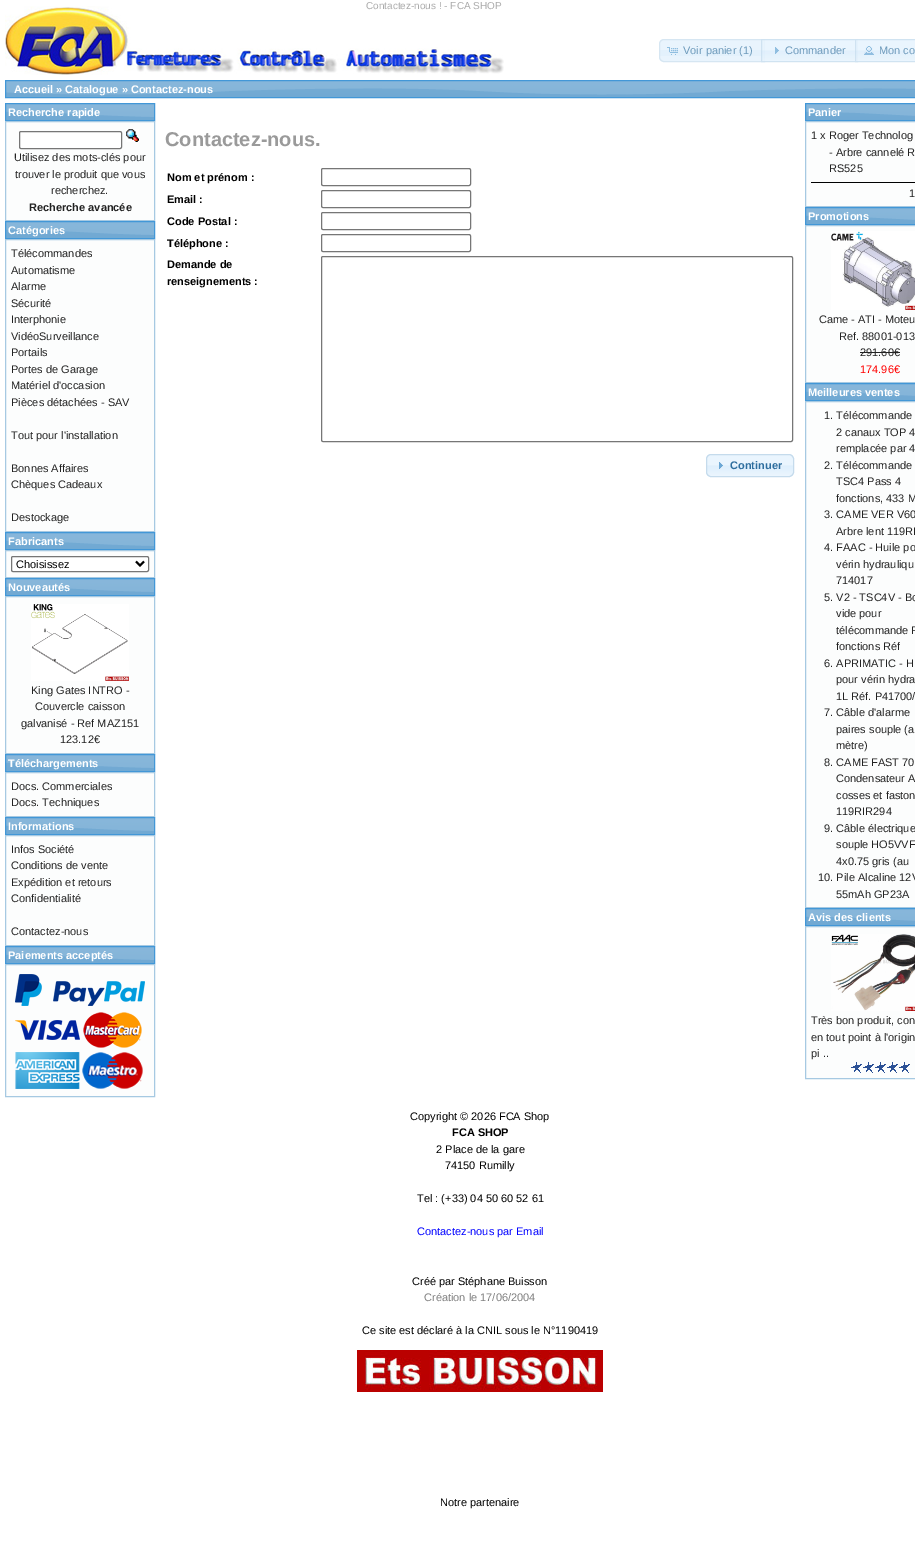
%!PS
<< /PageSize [915 1552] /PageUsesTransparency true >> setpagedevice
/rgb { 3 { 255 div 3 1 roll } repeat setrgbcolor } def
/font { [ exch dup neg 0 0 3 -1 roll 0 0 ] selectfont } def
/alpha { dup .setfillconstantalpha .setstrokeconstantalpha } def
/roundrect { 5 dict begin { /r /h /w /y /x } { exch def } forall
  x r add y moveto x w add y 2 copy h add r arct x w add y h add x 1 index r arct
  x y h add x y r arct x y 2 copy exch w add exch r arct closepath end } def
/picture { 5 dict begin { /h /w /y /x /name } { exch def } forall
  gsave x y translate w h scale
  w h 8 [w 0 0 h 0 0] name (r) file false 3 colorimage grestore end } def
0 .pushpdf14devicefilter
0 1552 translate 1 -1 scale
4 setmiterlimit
255 255 255 rgb
0 0 915 1552 rectfill
(img/1.rgb) 5 6 499 69 picture
233 244 253 rgb
664 39 moveto 765 39 lineto 765 62 lineto 664 62 lineto 661 62 659 60 659 57 curveto 659 44 lineto 659 41 661 39 664 39 curveto closepath fill
227 241 252 rgb
659 50 106 6 rectfill
214 230 242 rgb
664 39.5 moveto 764.5 39.5 lineto 764.5 61.5 lineto 664 61.5 lineto 661.5 61.5 659.5 59.5 659.5 57 curveto 659.5 44 lineto 659.5 41.5 661.5 39.5 664 39.5 curveto closepath stroke
(img/2.rgb) 667 47 11 8 picture
(img/3.rgb) 761 39 97 23 picture
0.7 alpha
197 219 236 rgb
761.5 39.5 96 22 rectstroke
1 alpha
(img/4.rgb) 775 47 4 7 picture
(img/5.rgb) 855 39 60 23 picture
0.7 alpha
855.5 39.5 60 22 rectstroke
1 alpha
(img/6.rgb) 864 46 10 9 picture
(img/7.rgb) 6 81 909 16 picture
66 151 215 rgb
5.5 80.5 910 17 rectstroke
(img/8.rgb) 6 104 148 16 picture
5.5 103.5 149 17 rectstroke
252 253 253 rgb
5.5 121.5 moveto 154.5 121.5 lineto 154.5 220.5 lineto 5.5 220.5 lineto closepath gsave fill grestore
166 201 226 rgb
stroke
255 255 255 rgb
19.5 131.5 102 17 1.5 roundrect gsave fill grestore
118 118 118 rgb
stroke
(img/9.rgb) 126 129 13 13 picture
(img/8.rgb) 6 222 148 16 picture
66 151 215 rgb
5.5 221.5 149 17 rectstroke
252 253 253 rgb
5.5 239.5 moveto 154.5 239.5 lineto 154.5 531.5 lineto 5.5 531.5 lineto closepath gsave fill grestore
166 201 226 rgb
stroke
(img/8.rgb) 6 533 148 16 picture
66 151 215 rgb
5.5 532.5 149 17 rectstroke
252 253 253 rgb
5.5 550.5 moveto 154.5 550.5 lineto 154.5 577.5 lineto 5.5 577.5 lineto closepath gsave fill grestore
166 201 226 rgb
stroke
255 255 255 rgb
11.5 556.5 137 15 1.5 roundrect gsave fill grestore
118 118 118 rgb
stroke
0 0 0 rgb
2 setlinewidth
136 561.5 moveto 140 565.5 lineto 144 561.5 lineto stroke
(img/8.rgb) 6 579 148 16 picture
66 151 215 rgb
1 setlinewidth
5.5 578.5 149 17 rectstroke
252 253 253 rgb
5.5 596.5 moveto 154.5 596.5 lineto 154.5 753.5 lineto 5.5 753.5 lineto closepath gsave fill grestore
166 201 226 rgb
stroke
(img/10.rgb) 31 604 98 77 picture
(img/8.rgb) 6 755 148 16 picture
66 151 215 rgb
5.5 754.5 149 17 rectstroke
252 253 253 rgb
5.5 772.5 moveto 154.5 772.5 lineto 154.5 816.5 lineto 5.5 816.5 lineto closepath gsave fill grestore
166 201 226 rgb
stroke
(img/8.rgb) 6 818 148 16 picture
66 151 215 rgb
5.5 817.5 149 17 rectstroke
252 253 253 rgb
5.5 835.5 moveto 154.5 835.5 lineto 154.5 945.5 lineto 5.5 945.5 lineto closepath gsave fill grestore
166 201 226 rgb
stroke
(img/8.rgb) 6 947 148 16 picture
66 151 215 rgb
5.5 946.5 149 17 rectstroke
252 253 253 rgb
5.5 964.5 moveto 154.5 964.5 lineto 154.5 1096.5 lineto 5.5 1096.5 lineto closepath gsave fill grestore
166 201 226 rgb
stroke
(img/11.rgb) 15 974 130 32 picture
(img/12.rgb) 15 1020 65 20 picture
(img/13.rgb) 83 1012 59 36 picture
(img/14.rgb) 15 1052 65 37 picture
(img/15.rgb) 82 1052 61 37 picture
118 118 118 rgb
321.5 168.5 149 17 1.5 roundrect stroke
321.5 190.5 149 17 1.5 roundrect stroke
321.5 212.5 149 17 1.5 roundrect stroke
321.5 234.5 149 17 1.5 roundrect stroke
321.5 256.5 471 185 1.5 roundrect stroke
(img/16.rgb) 706 454 88 23 picture
197 219 236 rgb
706.5 454.5 87 22 4.5 roundrect stroke
(img/17.rgb) 719 462 4 7 picture
(img/18.rgb) 806 104 109 16 picture
66 151 215 rgb
805.5 103.5 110 17 rectstroke
252 253 253 rgb
805.5 121.5 moveto 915.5 121.5 lineto 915.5 206.5 lineto 805.5 206.5 lineto closepath gsave fill grestore
166 201 226 rgb
stroke
0 0 0 rgb
811 182 104 1 rectfill
(img/18.rgb) 806 208 109 16 picture
66 151 215 rgb
805.5 207.5 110 17 rectstroke
252 253 253 rgb
805.5 225.5 moveto 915.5 225.5 lineto 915.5 382.5 lineto 805.5 382.5 lineto closepath gsave fill grestore
166 201 226 rgb
stroke
(img/19.rgb) 831 231 84 79 picture
34 34 34 rgb
860 352 40 1 rectfill
(img/18.rgb) 806 384 109 16 picture
66 151 215 rgb
805.5 383.5 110 17 rectstroke
252 253 253 rgb
805.5 401.5 moveto 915.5 401.5 lineto 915.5 907.5 lineto 805.5 907.5 lineto closepath gsave fill grestore
166 201 226 rgb
stroke
(img/18.rgb) 806 909 109 16 picture
66 151 215 rgb
805.5 908.5 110 17 rectstroke
252 253 253 rgb
805.5 926.5 moveto 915.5 926.5 lineto 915.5 1078.5 lineto 805.5 1078.5 lineto closepath gsave fill grestore
166 201 226 rgb
stroke
(img/20.rgb) 831 934 84 77 picture
(img/21.rgb) 851 1062 59 11 picture
(img/22.rgb) 357 1350 246 42 picture
/LiberationSans-Regular 10 font
170 170 170 rgb
366 9 moveto (Contactez-nous ! - FCA SHOP) show
/LiberationSans-Regular 11 font
109 154 187 rgb
[
  [(Voir panier \(1\)) 683 54]
  [(Commander) 785 54]
  [(Mon co) 879 54]
] { aload pop moveto show } forall
/LiberationSans-Bold 11 font
255 255 255 rgb
14 93 moveto (Accueil » Catalogue » Contactez-nous) show
8 116 moveto (Recherche rapide) show
/LiberationSans-Regular 11 font
34 34 34 rgb
[
  [(Utilisez des mots-clés pour) 14 161]
  [(trouver le produit que vous) 15 178]
  [(recherchez.) 51 194]
] { aload pop moveto show } forall
/LiberationSans-Bold 11 font
29 211 moveto (Recherche avancée) show
255 255 255 rgb
8 234 moveto (Catégories) show
/LiberationSans-Regular 11 font
34 34 34 rgb
[
  [(Télécommandes) 11 257]
  [(Automatisme) 11 274]
  [(Alarme) 11 290]
  [(Sécurité) 11 307]
  [(Interphonie) 11 323]
  [(VidéoSurveillance) 11 340]
  [(Portails) 11 356]
  [(Portes de Garage) 11 373]
  [(Matériel d'occasion) 11 389]
  [(Pièces détachées - SAV) 11 406]
  [(Tout pour l'installation) 11 439]
  [(Bonnes Affaires) 11 472]
  [(Chèques Cadeaux) 11 488]
  [(Destockage) 11 521]
] { aload pop moveto show } forall
/LiberationSans-Bold 11 font
255 255 255 rgb
8 545 moveto (Fabricants) show
/LiberationSans-Regular 11 font
0 0 0 rgb
16 568 moveto (Choisissez) show
/LiberationSans-Bold 11 font
255 255 255 rgb
8 591 moveto (Nouveautés) show
/LiberationSans-Regular 11 font
34 34 34 rgb
[
  [(King Gates INTRO -) 31 694]
  [(Couvercle caisson) 35 710]
  [(galvanisé - Ref MAZ151) 21 727]
  [(123.12€) 60 743]
] { aload pop moveto show } forall
/LiberationSans-Bold 11 font
255 255 255 rgb
8 767 moveto (Téléchargements) show
/LiberationSans-Regular 11 font
34 34 34 rgb
11 790 moveto (Docs. Commerciales) show
11 806 moveto (Docs. Techniques) show
/LiberationSans-Bold 11 font
255 255 255 rgb
8 830 moveto (Informations) show
/LiberationSans-Regular 11 font
34 34 34 rgb
[
  [(Infos Société) 11 853]
  [(Conditions de vente) 11 869]
  [(Expédition et retours) 11 886]
  [(Confidentialité) 11 902]
  [(Contactez-nous) 11 935]
] { aload pop moveto show } forall
/LiberationSans-Bold 11 font
255 255 255 rgb
8 959 moveto (Paiements acceptés) show
/LiberationSans-Bold 20 font
154 154 154 rgb
165 146 moveto (Contactez-nous.) show
/LiberationSans-Bold 11 font
0 0 0 rgb
[
  [(Nom et prénom :) 167 181]
  [(Email :) 167 203]
  [(Code Postal :) 167 225]
  [(Téléphone :) 167 247]
  [(Demande de) 167 268]
  [(renseignements :) 167 285]
] { aload pop moveto show } forall
46 110 158 rgb
730 469 moveto (Continuer) show
255 255 255 rgb
808 116 moveto (Panier) show
/LiberationSans-Regular 11 font
34 34 34 rgb
[
  [(1 x Roger Technolog) 811 139]
  [(- Arbre cannelé R) 829 156]
  [(RS525) 829 172]
  [(1) 909 197]
] { aload pop moveto show } forall
/LiberationSans-Bold 11 font
255 255 255 rgb
808 220 moveto (Promotions) show
/LiberationSans-Regular 11 font
34 34 34 rgb
[
  [(Came - ATI - Moteu) 819 323]
  [(Ref. 88001-013) 839 340]
  [(291.60€) 860 356]
] { aload pop moveto show } forall
255 0 0 rgb
860 373 moveto (174.96€) show
/LiberationSans-Bold 11 font
255 255 255 rgb
808 396 moveto (Meilleures ventes) show
/LiberationSans-Regular 11 font
34 34 34 rgb
[
  [(1. Télécommande) 824 419]
  [(2 canaux TOP 4) 836 436]
  [(remplacée par 4) 836 452]
  [(2. Télécommande) 824 469]
  [(TSC4 Pass 4) 836 485]
  [(fonctions, 433 M) 836 502]
  [(3. CAME VER V60) 824 518]
  [(Arbre lent 119RI) 836 535]
  [(4. FAAC - Huile po) 824 551]
  [(vérin hydrauliqu) 836 568]
  [(714017) 836 584]
  [(5. V2 - TSC4V - Bo) 824 601]
  [(vide pour) 836 617]
  [(télécommande P) 836 634]
  [(fonctions Réf) 836 650]
  [(6. APRIMATIC - H) 824 667]
  [(pour vérin hydra) 836 683]
  [(1L Réf. P41700/) 836 700]
  [(7. Câble d'alarme) 824 716]
  [(paires souple \(a) 836 733]
  [(mètre\)) 836 749]
  [(8. CAME FAST 70) 824 766]
  [(Condensateur A) 836 782]
  [(cosses et faston) 836 799]
  [(119RIR294) 836 815]
  [(9. Câble électrique) 824 832]
  [(souple HO5VVF) 836 848]
  [(4x0.75 gris \(au) 836 865]
  [(10. Pile Alcaline 12V) 818 881]
  [(55mAh GP23A) 836 898]
] { aload pop moveto show } forall
/LiberationSans-Bold 11 font
255 255 255 rgb
808 921 moveto (Avis des clients) show
/LiberationSans-Regular 11 font
34 34 34 rgb
[
  [(Très bon produit, con) 811 1024]
  [(en tout point à l'origin) 811 1041]
  [(pi ..) 811 1057]
] { aload pop moveto show } forall
0 0 0 rgb
410 1120 moveto (Copyright © 2026 FCA Shop) show
/LiberationSans-Bold 11 font
452 1136 moveto (FCA SHOP) show
/LiberationSans-Regular 11 font
[
  [(2 Place de la gare) 436 1153]
  [(74150 Rumilly) 445 1169]
  [(Tel : \(+33\) 04 50 60 52 61) 417 1202]
] { aload pop moveto show } forall
0 0 255 rgb
417 1235 moveto (Contactez-nous par Email) show
0 0 0 rgb
412 1285 moveto (Créé par Stéphane Buisson) show
128 128 128 rgb
424 1301 moveto (Création le 17/06/2004) show
0 0 0 rgb
362 1334 moveto (Ce site est déclaré à la CNIL sous le N°1190419) show
440 1506 moveto (Notre partenaire) show
.poppdf14devicefilter showpage
